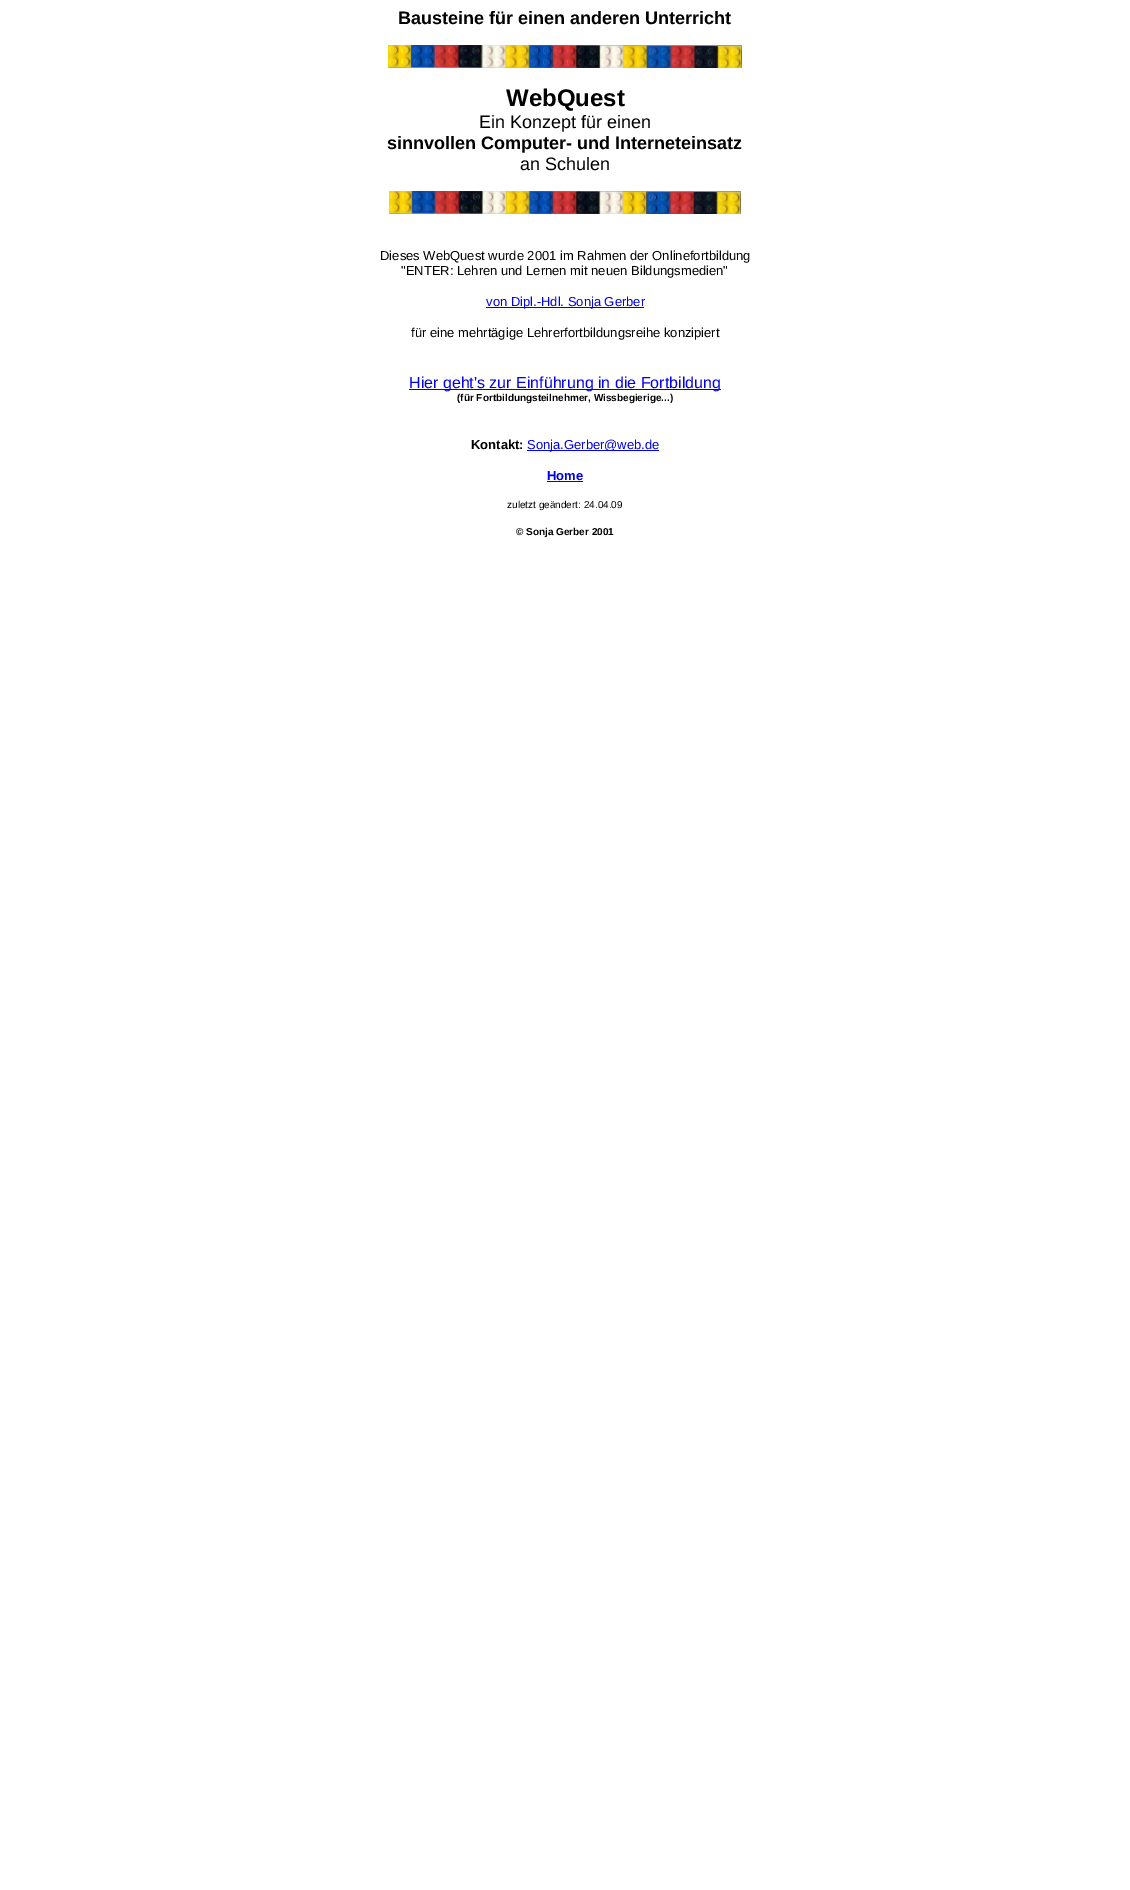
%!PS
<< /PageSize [1130 1890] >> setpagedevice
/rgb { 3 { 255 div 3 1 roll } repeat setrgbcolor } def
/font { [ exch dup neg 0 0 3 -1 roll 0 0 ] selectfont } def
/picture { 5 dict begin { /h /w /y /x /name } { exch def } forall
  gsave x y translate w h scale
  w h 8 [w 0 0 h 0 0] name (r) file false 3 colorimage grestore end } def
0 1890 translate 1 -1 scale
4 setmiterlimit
255 255 255 rgb
0 0 1130 1890 rectfill
(img/1.rgb) 388 45 354 23 picture
(img/2.rgb) 389 191 352 23 picture
[
  [486 307 158 1 0 0 238]
  [409 389 312 1 0 0 238]
  [527 450 132 1 0 0 238]
  [547 481 36 1 0 0 238]
] { aload pop rgb rectfill } forall
/LiberationSans-Bold 18 font
0 0 0 rgb
398 24 moveto (Bausteine für einen anderen Unterricht) show
/LiberationSans-Bold 24 font
506 106 moveto (WebQuest) show
/LiberationSans-Regular 18 font
479 128 moveto (Ein Konzept für einen) show
/LiberationSans-Bold 18 font
387 149 moveto (sinnvollen Computer- und Interneteinsatz) show
/LiberationSans-Regular 18 font
520 170 moveto (an Schulen) show
/LiberationSans-Regular 13 font
380 260 moveto (Dieses WebQuest wurde 2001 im Rahmen der Onlinefortbildung) show
401 275 moveto ("ENTER: Lehren und Lernen mit neuen Bildungsmedien") show
0 0 238 rgb
486 306 moveto (von Dipl.-Hdl. Sonja Gerber) show
0 0 0 rgb
411 337 moveto (für eine mehrtägige Lehrerfortbildungsreihe konzipiert) show
/LiberationSans-Regular 16 font
0 0 238 rgb
409 388 moveto (Hier geht's zur Einführung in die Fortbildung) show
/LiberationSans-Bold 10 font
0 0 0 rgb
457 401 moveto (\(für Fortbildungsteilnehmer, Wissbegierige...\)) show
/LiberationSans-Bold 13 font
471 449 moveto (Kontakt:) show
/LiberationSans-Regular 13 font
0 0 238 rgb
527 449 moveto (Sonja.Gerber@web.de) show
/LiberationSans-Bold 13 font
547 480 moveto (Home) show
/LiberationSans-Regular 10 font
0 0 0 rgb
507 508 moveto (zuletzt geändert: 24.04.09) show
/LiberationSans-Bold 10 font
516 535 moveto (© Sonja Gerber 2001) show
showpage
